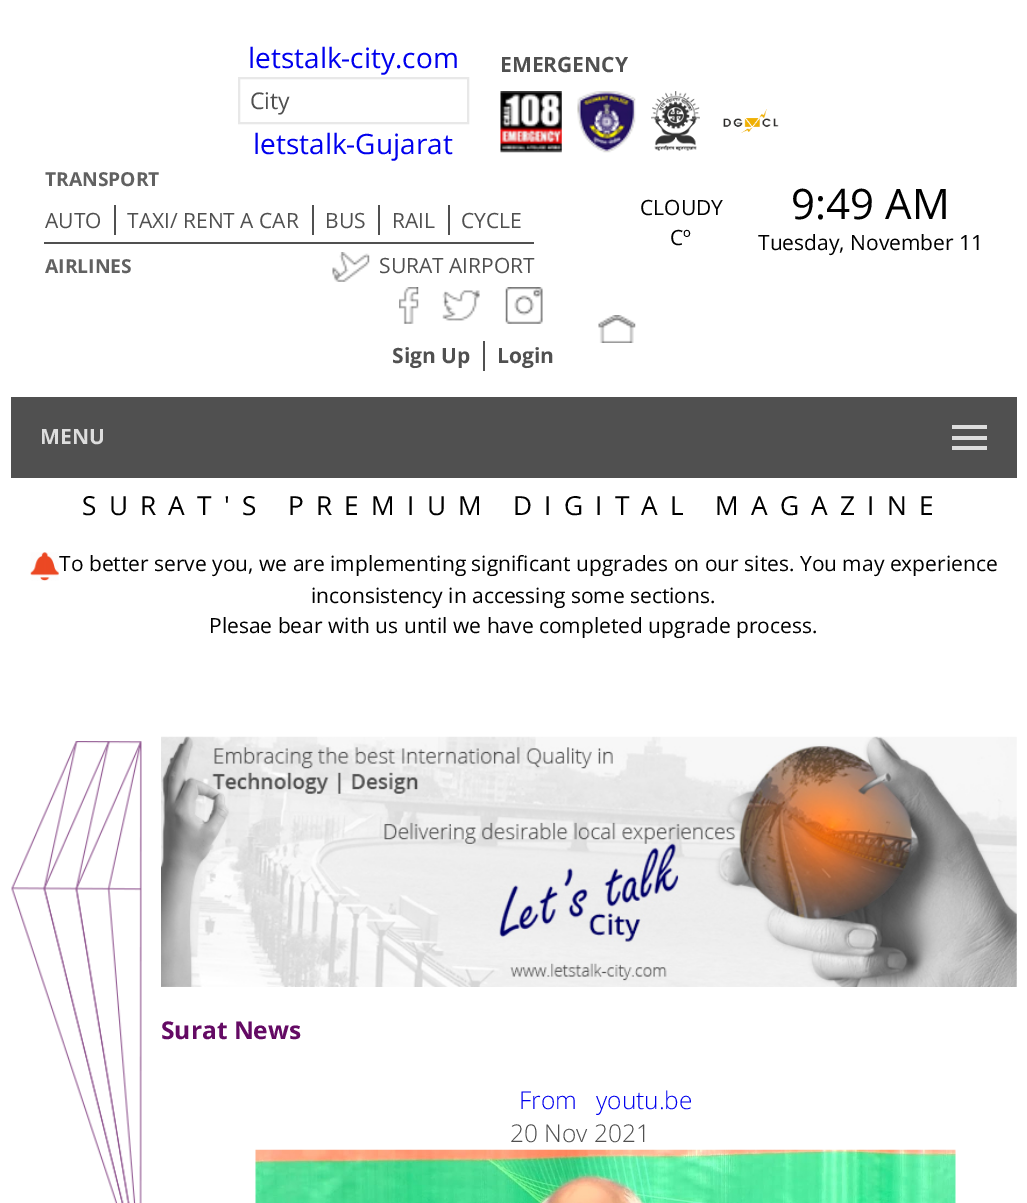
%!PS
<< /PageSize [1027 1203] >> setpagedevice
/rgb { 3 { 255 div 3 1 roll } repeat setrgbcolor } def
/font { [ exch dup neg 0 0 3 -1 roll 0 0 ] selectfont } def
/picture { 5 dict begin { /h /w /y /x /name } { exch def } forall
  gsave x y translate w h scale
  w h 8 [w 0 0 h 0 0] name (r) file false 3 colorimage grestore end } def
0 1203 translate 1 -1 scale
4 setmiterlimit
255 255 255 rgb
0 0 1027 1203 rectfill
232 232 232 rgb
2 setlinewidth
239 78 229 45 rectstroke
(img/1.rgb) 500 91 62 62 picture
(img/2.rgb) 577 91 59 62 picture
(img/3.rgb) 651 91 49 60 picture
(img/4.rgb) 723 109 56 24 picture
[
  [44 242 490 2 80 80 80]
  [114 205 2 30 80 80 80]
  [312 205 2 30 80 80 80]
  [378 205 2 30 80 80 80]
  [448 205 2 30 80 80 80]
] { aload pop rgb rectfill } forall
(img/5.rgb) 332 252 38 30 picture
(img/6.rgb) 598 315 38 28 picture
(img/7.rgb) 399 287 20 37 picture
(img/8.rgb) 442 290 38 31 picture
(img/9.rgb) 505 287 38 37 picture
[
  [483 341 2 30 80 80 80]
  [11 397 1006 81 80 80 80]
  [952 425 35 4 221 221 221]
  [952 436 35 4 221 221 221]
  [952 446 35 4 221 221 221]
] { aload pop rgb rectfill } forall
(img/10.rgb) 30 552 29 29 picture
(img/11.rgb) 11 741 131 462 picture
(img/12.rgb) 161 736 856 251 picture
(img/13.rgb) 255 1149 701 54 picture
/OpenSans-Regular 28 font
0 0 238 rgb
248 68 moveto (letstalk-city.com) show
/OpenSans-Regular 23 font
80 80 80 rgb
250 109 moveto (City) show
/OpenSans-Regular 28 font
0 0 238 rgb
253 154 moveto (letstalk-Gujarat) show
/OpenSans-Bold 21 font
80 80 80 rgb
500 72 moveto (EMERGENCY) show
/OpenSans-Bold 19.25 font
97 97 97 rgb
45 186 moveto (TRANSPORT) show
/OpenSans-Regular 21 font
80 80 80 rgb
[
  [(AUTO) 45 228]
  [(TAXI/ RENT A CAR) 127 228]
  [(BUS) 325 228]
  [(RAIL) 392 228]
  [(CYCLE) 461 228]
] { aload pop moveto show } forall
/OpenSans-Bold 19.25 font
97 97 97 rgb
45 273 moveto (AIRLINES) show
/OpenSans-Regular 21 font
80 80 80 rgb
379 273 moveto (SURAT AIRPORT) show
0 0 0 rgb
640 215 moveto (CLOUDY) show
670 245 moveto (Cº) show
/OpenSans-Regular 42 font
791 219 moveto (9:49 AM) show
/OpenSans-Regular 21 font
758 250 moveto (Tuesday, November 11) show
/OpenSans-Bold 21 font
80 80 80 rgb
392 363 moveto (Sign Up) show
497 363 moveto (Login) show
221 221 221 rgb
40 444 moveto (MENU) show
/OpenSans-Regular 26.25 font
0 0 0 rgb
82 515 moveto 12.25 0 (SURAT'S PREMIUM DIGITAL MAGAZINE) ashow
/OpenSans-Regular 21 font
[
  [(To better serve you, we are implementing significant upgrades on our sites. You may experience) 59 571]
  [(inconsistency in accessing some sections.) 311 603]
  [(Plesae bear with us until we have completed upgrade process.) 209 633]
] { aload pop moveto show } forall
/OpenSans-Bold 24.5 font
100 10 100 rgb
161 1039 moveto (Surat News) show
/OpenSans-Light 24.5 font
0 0 238 rgb
519 1109 moveto (From   youtu.be) show
80 80 80 rgb
510 1142 moveto (20 Nov 2021) show
showpage
